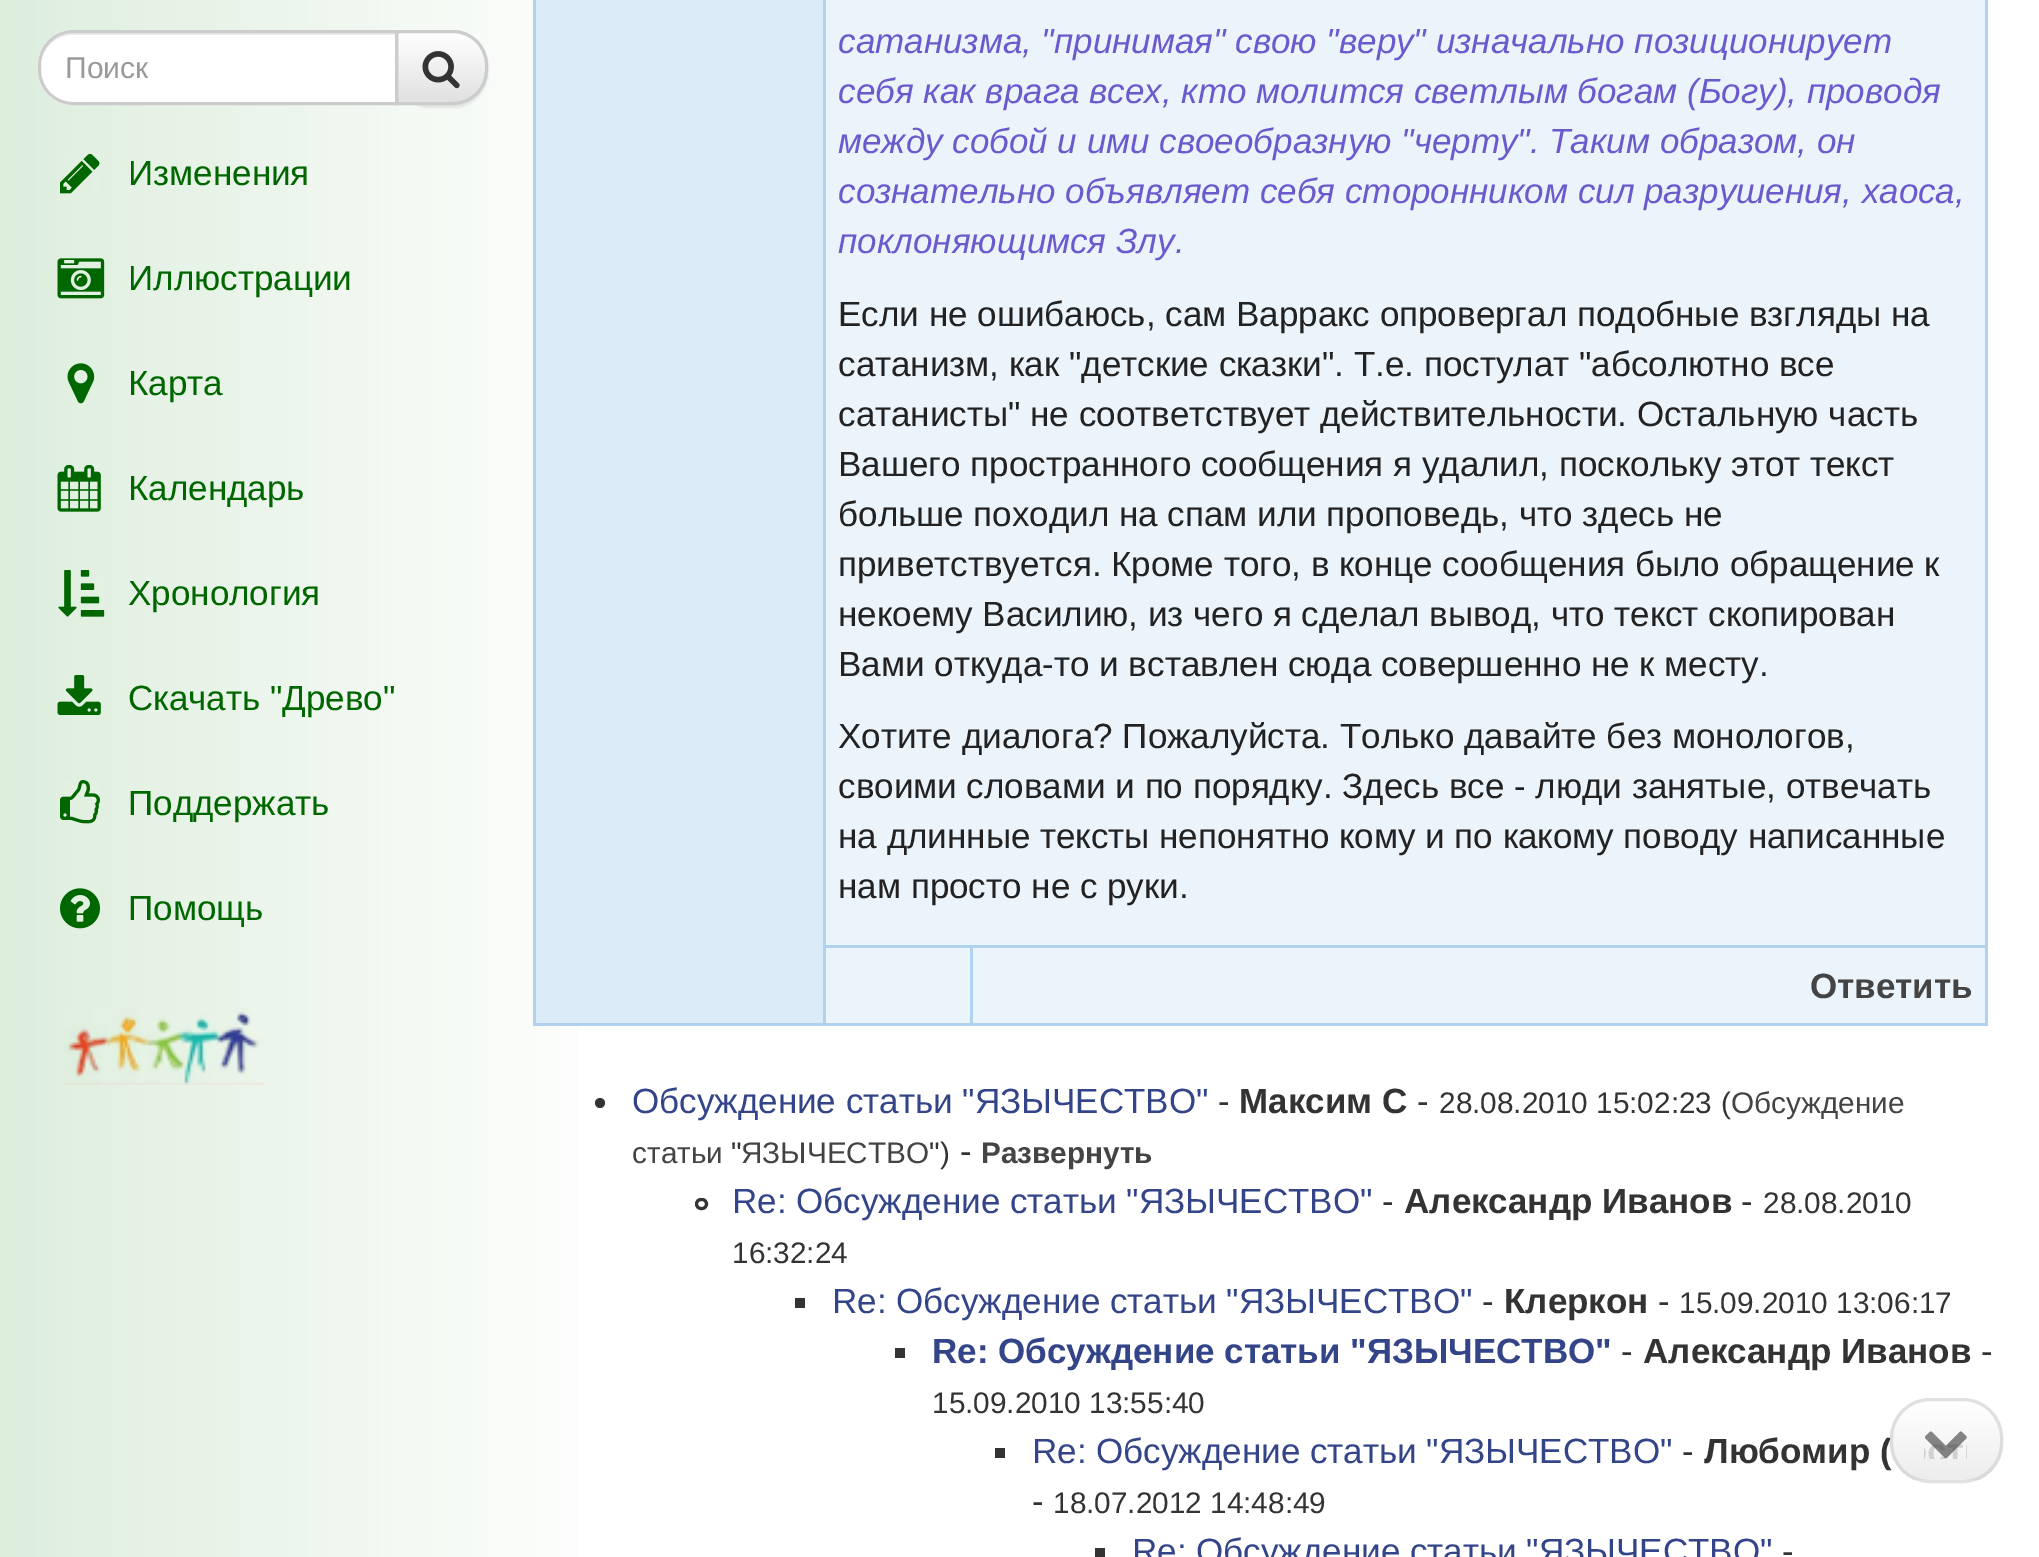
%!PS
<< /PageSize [2039 1557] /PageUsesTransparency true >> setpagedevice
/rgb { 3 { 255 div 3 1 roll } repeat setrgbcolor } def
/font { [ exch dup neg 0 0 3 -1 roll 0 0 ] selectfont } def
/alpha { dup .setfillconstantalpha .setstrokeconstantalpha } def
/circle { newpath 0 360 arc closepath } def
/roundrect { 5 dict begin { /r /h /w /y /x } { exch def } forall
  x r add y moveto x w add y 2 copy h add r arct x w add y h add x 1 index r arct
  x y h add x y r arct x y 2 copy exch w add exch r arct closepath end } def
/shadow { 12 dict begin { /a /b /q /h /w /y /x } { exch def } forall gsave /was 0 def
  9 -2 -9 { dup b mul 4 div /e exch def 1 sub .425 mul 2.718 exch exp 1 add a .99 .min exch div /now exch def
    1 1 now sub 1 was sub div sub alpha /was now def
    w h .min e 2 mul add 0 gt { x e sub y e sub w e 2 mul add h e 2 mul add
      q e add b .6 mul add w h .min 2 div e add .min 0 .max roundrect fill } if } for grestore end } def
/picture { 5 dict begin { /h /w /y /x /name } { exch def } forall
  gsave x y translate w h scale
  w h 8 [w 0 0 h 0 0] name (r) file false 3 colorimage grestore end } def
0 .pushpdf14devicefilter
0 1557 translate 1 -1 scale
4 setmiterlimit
255 255 255 rgb
0 0 2039 1557 rectfill
gsave 0 0 moveto 579 0 lineto 579 1557 lineto 0 1557 lineto closepath clip newpath
<< /ShadingType 2 /ColorSpace /DeviceRGB /Coords [0 531 625 531] /Extend [true true] /Function << /FunctionType 2 /Domain [0 1] /C0 [0.867 0.933 0.867] /C1 [1 1 1] /N 1 >> >> shfill grestore
0 0 0 rgb
395 33 93 75 35 1 0.07 shadow
gsave
395 30 moveto 453 30 lineto 472.5 30 488 45.5 488 65 curveto 488 70 lineto 488 89.5 472.5 105 453 105 curveto 395 105 lineto closepath clip newpath
gsave 398 33 moveto 488 33 lineto 488 103 lineto 398 103 lineto closepath clip newpath
<< /ShadingType 2 /ColorSpace /DeviceRGB /Coords [441 32 441 103] /Extend [true true] /Function << /FunctionType 2 /Domain [0 1] /C0 [1 1 1] /C1 [0.878 0.878 0.878] /N 1 >> >> shfill grestore
grestore
204 204 204 rgb
3 setlinewidth
396.5 31.5 moveto 453 31.5 lineto 471.5 31.5 486.5 46.5 486.5 65 curveto 486.5 70 lineto 486.5 88.5 471.5 103.5 453 103.5 curveto 396.5 103.5 lineto closepath stroke
255 255 255 rgb
73 30 moveto 398 30 lineto 398 105 lineto 73 105 lineto 53.5 105 38 89.5 38 70 curveto 38 65 lineto 38 45.5 53.5 30 73 30 curveto closepath fill
236 236 236 rgb
72 35 moveto 395 35 lineto 395 33 lineto 73 33 lineto 55 33 40 48 40 66 curveto 40 68 lineto 40 50 55 35 72 35 curveto closepath fill
204 204 204 rgb
73 31.5 moveto 396.5 31.5 lineto 396.5 103.5 lineto 73 103.5 lineto 54.5 103.5 39.5 88.5 39.5 70 curveto 39.5 65 lineto 39.5 46.5 54.5 31.5 73 31.5 curveto closepath stroke
(img/1.rgb) 422 51 38 38 picture
(img/2.rgb) 60 153 40 41 picture
(img/3.rgb) 57 258 48 41 picture
(img/4.rgb) 67 363 28 41 picture
(img/5.rgb) 57 465 44 47 picture
(img/6.rgb) 58 570 47 47 picture
(img/7.rgb) 57 675 44 40 picture
(img/8.rgb) 60 780 40 44 picture
(img/9.rgb) 60 888 40 41 picture
(img/10.rgb) 63 1008 202 77 picture
[
  [536 0 287 1023 220 235 248]
  [1985 0 3 1025 177 210 239]
  [533 1023 1455 3 177 210 239]
  [533 0 3 1025 177 210 239]
  [826 0 1159 945 235 244 251]
  [826 948 144 75 235 244 251]
  [970 945 1018 3 177 210 239]
  [970 945 3 80 177 210 239]
  [823 945 150 3 177 210 239]
  [823 0 3 1025 177 210 239]
  [973 948 1012 75 235 244 251]
] { aload pop rgb rectfill } forall
51 51 51 rgb
600 1103 5 circle fill
696.5 1199.5 10 9 4.5 roundrect stroke
[
  [795 1298 10 10 51 51 51]
  [895 1348 10 10 51 51 51]
  [995 1448 10 10 51 51 51]
  [1095 1548 10 9 51 51 51]
] { aload pop rgb rectfill } forall
/LiberationSans-Regular 30 font
153 153 153 rgb
65 78 moveto (Поиск) show
/LiberationSans-Regular 35 font
0 102 0 rgb
[
  [(Изменения) 128 185]
  [(Иллюстрации) 128 290]
  [(Карта) 128 395]
  [(Календарь) 128 500]
  [(Хронология) 128 605]
  [(Скачать "Древо") 128 710]
  [(Поддержать) 128 815]
  [(Помощь) 128 920]
] { aload pop moveto show } forall
/LiberationSans-Italic 35 font
106 90 205 rgb
[
  [(сатанизма, "принимая" свою "веру" изначально позиционирует) 838 53]
  [(себя как врага всех, кто молится светлым богам \(Богу\), проводя) 838 103]
  [(между собой и ими своеобразную "черту". Таким образом, он) 838 153]
  [(сознательно объявляет себя сторонником сил разрушения, хаоса,) 838 203]
  [(поклоняющимся Злу.) 838 253]
] { aload pop moveto show } forall
/LiberationSans-Regular 35 font
34 34 34 rgb
[
  [(Если не ошибаюсь, сам Варракс опровергал подобные взгляды на) 838 326]
  [(сатанизм, как "детские сказки". Т.е. постулат "абсолютно все) 838 376]
  [(сатанисты" не соответствует действительности. Остальную часть) 838 426]
  [(Вашего пространного сообщения я удалил, поскольку этот текст) 838 476]
  [(больше походил на спам или проповедь, что здесь не) 838 526]
  [(приветствуется. Кроме того, в конце сообщения было обращение к) 838 576]
  [(некоему Василию, из чего я сделал вывод, что текст скопирован) 838 626]
  [(Вами откуда-то и вставлен сюда совершенно не к месту.) 838 676]
  [(Хотите диалога? Пожалуйста. Только давайте без монологов,) 838 748]
  [(своими словами и по порядку. Здесь все - люди занятые, отвечать) 838 798]
  [(на длинные тексты непонятно кому и по какому поводу написанные) 838 848]
  [(нам просто не с руки.) 838 898]
] { aload pop moveto show } forall
/LiberationSans-Bold 35 font
68 68 68 rgb
1810 998 moveto (Ответить) show
/LiberationSans-Regular 35 font
51 68 136 rgb
632 1113 moveto (Обсуждение статьи "ЯЗЫЧЕСТВО") show
51 51 51 rgb
1218 1113 moveto (-) show
/LiberationSans-Bold 35 font
1239 1113 moveto (Максим C) show
/LiberationSans-Regular 35 font
1417 1113 moveto (-) show
/LiberationSans-Regular 29.75 font
1439 1113 moveto (28.08.2010 15:02:23) show
1721 1113 moveto (\() show
68 68 68 rgb
1731 1113 moveto (Обсуждение) show
632 1163 moveto (статьи) show
51 51 51 rgb
731 1163 moveto (") show
68 68 68 rgb
741 1163 moveto (ЯЗЫЧЕСТВО) show
51 51 51 rgb
929 1163 moveto ("\)) show
/LiberationSans-Regular 35 font
960 1163 moveto (-) show
/LiberationSans-Bold 29.75 font
68 68 68 rgb
981 1163 moveto (Развернуть) show
/LiberationSans-Regular 35 font
51 68 136 rgb
732 1213 moveto (Re: Обсуждение статьи "ЯЗЫЧЕСТВО") show
51 51 51 rgb
1382 1213 moveto (-) show
/LiberationSans-Bold 35 font
1404 1213 moveto (Александр Иванов) show
/LiberationSans-Regular 35 font
1741 1213 moveto (-) show
/LiberationSans-Regular 29.75 font
1763 1213 moveto (28.08.2010) show
732 1263 moveto (16:32:24) show
/LiberationSans-Regular 35 font
51 68 136 rgb
832 1313 moveto (Re: Обсуждение статьи "ЯЗЫЧЕСТВО") show
51 51 51 rgb
1482 1313 moveto (-) show
/LiberationSans-Bold 35 font
1504 1313 moveto (Клеркон) show
/LiberationSans-Regular 35 font
1658 1313 moveto (-) show
/LiberationSans-Regular 29.75 font
1679 1313 moveto (15.09.2010 13:06:17) show
/LiberationSans-Bold 35 font
51 68 136 rgb
932 1363 moveto (Re: Обсуждение статьи "ЯЗЫЧЕСТВО") show
/LiberationSans-Regular 35 font
51 51 51 rgb
1621 1363 moveto (-) show
/LiberationSans-Bold 35 font
1643 1363 moveto (Александр Иванов) show
/LiberationSans-Regular 35 font
1981 1363 moveto (-) show
/LiberationSans-Regular 29.75 font
932 1413 moveto (15.09.2010 13:55:40) show
/LiberationSans-Regular 35 font
51 68 136 rgb
1032 1463 moveto (Re: Обсуждение статьи "ЯЗЫЧЕСТВО") show
51 51 51 rgb
1682 1463 moveto (-) show
/LiberationSans-Bold 35 font
1704 1463 moveto (Любомир \() show
/LiberationSans-Regular 35 font
1032 1513 moveto (-) show
/LiberationSans-Regular 29.75 font
1053 1513 moveto (18.07.2012 14:48:49) show
/LiberationSans-Regular 35 font
51 68 136 rgb
1132 1563 moveto (Re: Обсуждение статьи "ЯЗЫЧЕСТВО") show
51 51 51 rgb
1782 1563 moveto (-) show
0.59 alpha
255 255 255 rgb
1890 1398 113 85 40 roundrect fill
gsave
1890 1398 113 85 40 roundrect clip newpath
gsave 1890 1400 moveto 2003 1400 lineto 2003 1480 lineto 1890 1480 lineto closepath clip newpath
<< /ShadingType 2 /ColorSpace /DeviceRGB /Coords [1946 1400 1946 1480] /Extend [true true] /Function << /FunctionType 2 /Domain [0 1] /C0 [1 1 1] /C1 [0.878 0.878 0.878] /N 1 >> >> shfill grestore
grestore
204 204 204 rgb
1891.5 1399.5 110 82 38.5 roundrect stroke
1 alpha
(img/11.rgb) 1924 1431 43 28 picture
.poppdf14devicefilter showpage
